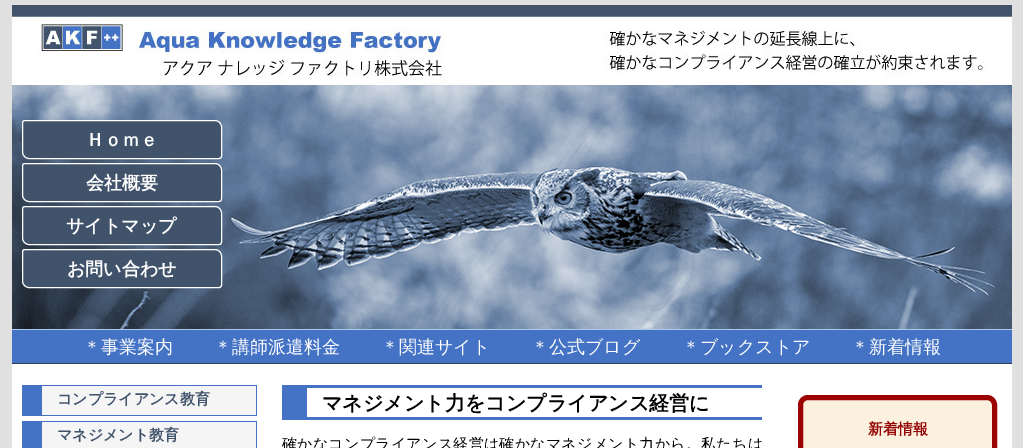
%!PS
<< /PageSize [1023 448] >> setpagedevice
/rgb { 3 { 255 div 3 1 roll } repeat setrgbcolor } def
/font { [ exch dup neg 0 0 3 -1 roll 0 0 ] selectfont } def
/roundrect { 5 dict begin { /r /h /w /y /x } { exch def } forall
  x r add y moveto x w add y 2 copy h add r arct x w add y h add x 1 index r arct
  x y h add x y r arct x y 2 copy exch w add exch r arct closepath end } def
/picture { 5 dict begin { /h /w /y /x /name } { exch def } forall
  gsave x y translate w h scale
  w h 8 [w 0 0 h 0 0] name (r) file false 3 colorimage grestore end } def
0 448 translate 1 -1 scale
4 setmiterlimit
224 224 224 rgb
0 0 1023 448 rectfill
255 255 255 rgb
12 77 1000 371 rectfill
(img/1.rgb) 12 5 1000 72 picture
(img/2.rgb) 12 85 1000 244 picture
65 83 107 rgb
25 120.5 moveto 215 120.5 lineto 218.5 120.5 221.5 123.5 221.5 127 curveto 221.5 156 lineto 221.5 157.5 220.5 158.5 219 158.5 curveto 29 158.5 lineto 25.5 158.5 22.5 155.5 22.5 152 curveto 22.5 123 lineto 22.5 121.5 23.5 120.5 25 120.5 curveto closepath gsave fill grestore
255 255 255 rgb
stroke
65 83 107 rgb
25 163.5 moveto 215 163.5 lineto 218.5 163.5 221.5 166.5 221.5 170 curveto 221.5 199 lineto 221.5 200.5 220.5 201.5 219 201.5 curveto 29 201.5 lineto 25.5 201.5 22.5 198.5 22.5 195 curveto 22.5 166 lineto 22.5 164.5 23.5 163.5 25 163.5 curveto closepath gsave fill grestore
255 255 255 rgb
stroke
65 83 107 rgb
25 206.5 moveto 215 206.5 lineto 218.5 206.5 221.5 209.5 221.5 213 curveto 221.5 242 lineto 221.5 243.5 220.5 244.5 219 244.5 curveto 29 244.5 lineto 25.5 244.5 22.5 241.5 22.5 238 curveto 22.5 209 lineto 22.5 207.5 23.5 206.5 25 206.5 curveto closepath gsave fill grestore
255 255 255 rgb
stroke
65 83 107 rgb
25 249.5 moveto 215 249.5 lineto 218.5 249.5 221.5 252.5 221.5 256 curveto 221.5 285 lineto 221.5 286.5 220.5 287.5 219 287.5 curveto 29 287.5 lineto 25.5 287.5 22.5 284.5 22.5 281 curveto 22.5 252 lineto 22.5 250.5 23.5 249.5 25 249.5 curveto closepath gsave fill grestore
255 255 255 rgb
stroke
[
  [12 330 1000 33 68 114 196]
  [12 329 1000 1 171 201 235]
  [12 363 1000 1 49 63 82]
  [42 386 214 29 245 245 245]
  [42 385 215 1 68 114 196]
  [256 385 1 31 68 114 196]
  [42 415 215 1 68 114 196]
  [22 385 20 31 68 114 196]
  [42 422 214 26 245 245 245]
  [42 421 215 1 68 114 196]
  [256 421 1 27 68 114 196]
  [22 421 20 27 68 114 196]
  [307 385 455 3 68 114 196]
  [307 417 455 3 68 114 196]
  [282 385 25 35 68 114 196]
] { aload pop rgb rectfill } forall
252 241 222 rgb
800.5 397.5 194 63 7.5 roundrect gsave fill grestore
157 2 2 rgb
5 setlinewidth
stroke
/WenQuanYiZenHei-Bold 18 font
255 255 255 rgb
[
  [(Ｈｏｍｅ) 86 146]
  [(会社概要) 86 189]
  [(サイトマップ) 66 232]
  [(お問い合わせ) 67 275]
] { aload pop moveto show } forall
/WenQuanYiZenHei-Medium 18 font
[
  [(＊事業案内) 83 353]
  [(＊講師派遣料金) 214 353]
  [(＊関連サイト) 381 353]
  [(＊公式ブログ) 531 353]
  [(＊ブックストア) 682 353]
  [(＊新着情報) 851 353]
] { aload pop moveto show } forall
/WenQuanYiZenHei-Bold 15 font
65 83 107 rgb
57 404 moveto (コンプライアンス教育) show
57 440 moveto (マネジメント教育) show
/WenQuanYiZenHei-Bold 20 font
0 0 0 rgb
322 410 moveto (マネジメント力をコンプライアンス経営に) show
/WenQuanYiZenHei-Medium 15 font
282 449 moveto 0.25 0 (確かなコンプライアンス経営は確かなマネジメント力から。私たちは) ashow
/WenQuanYiZenHei-Bold 15 font
148 3 3 rgb
868 434 moveto (新着情報) show
showpage
